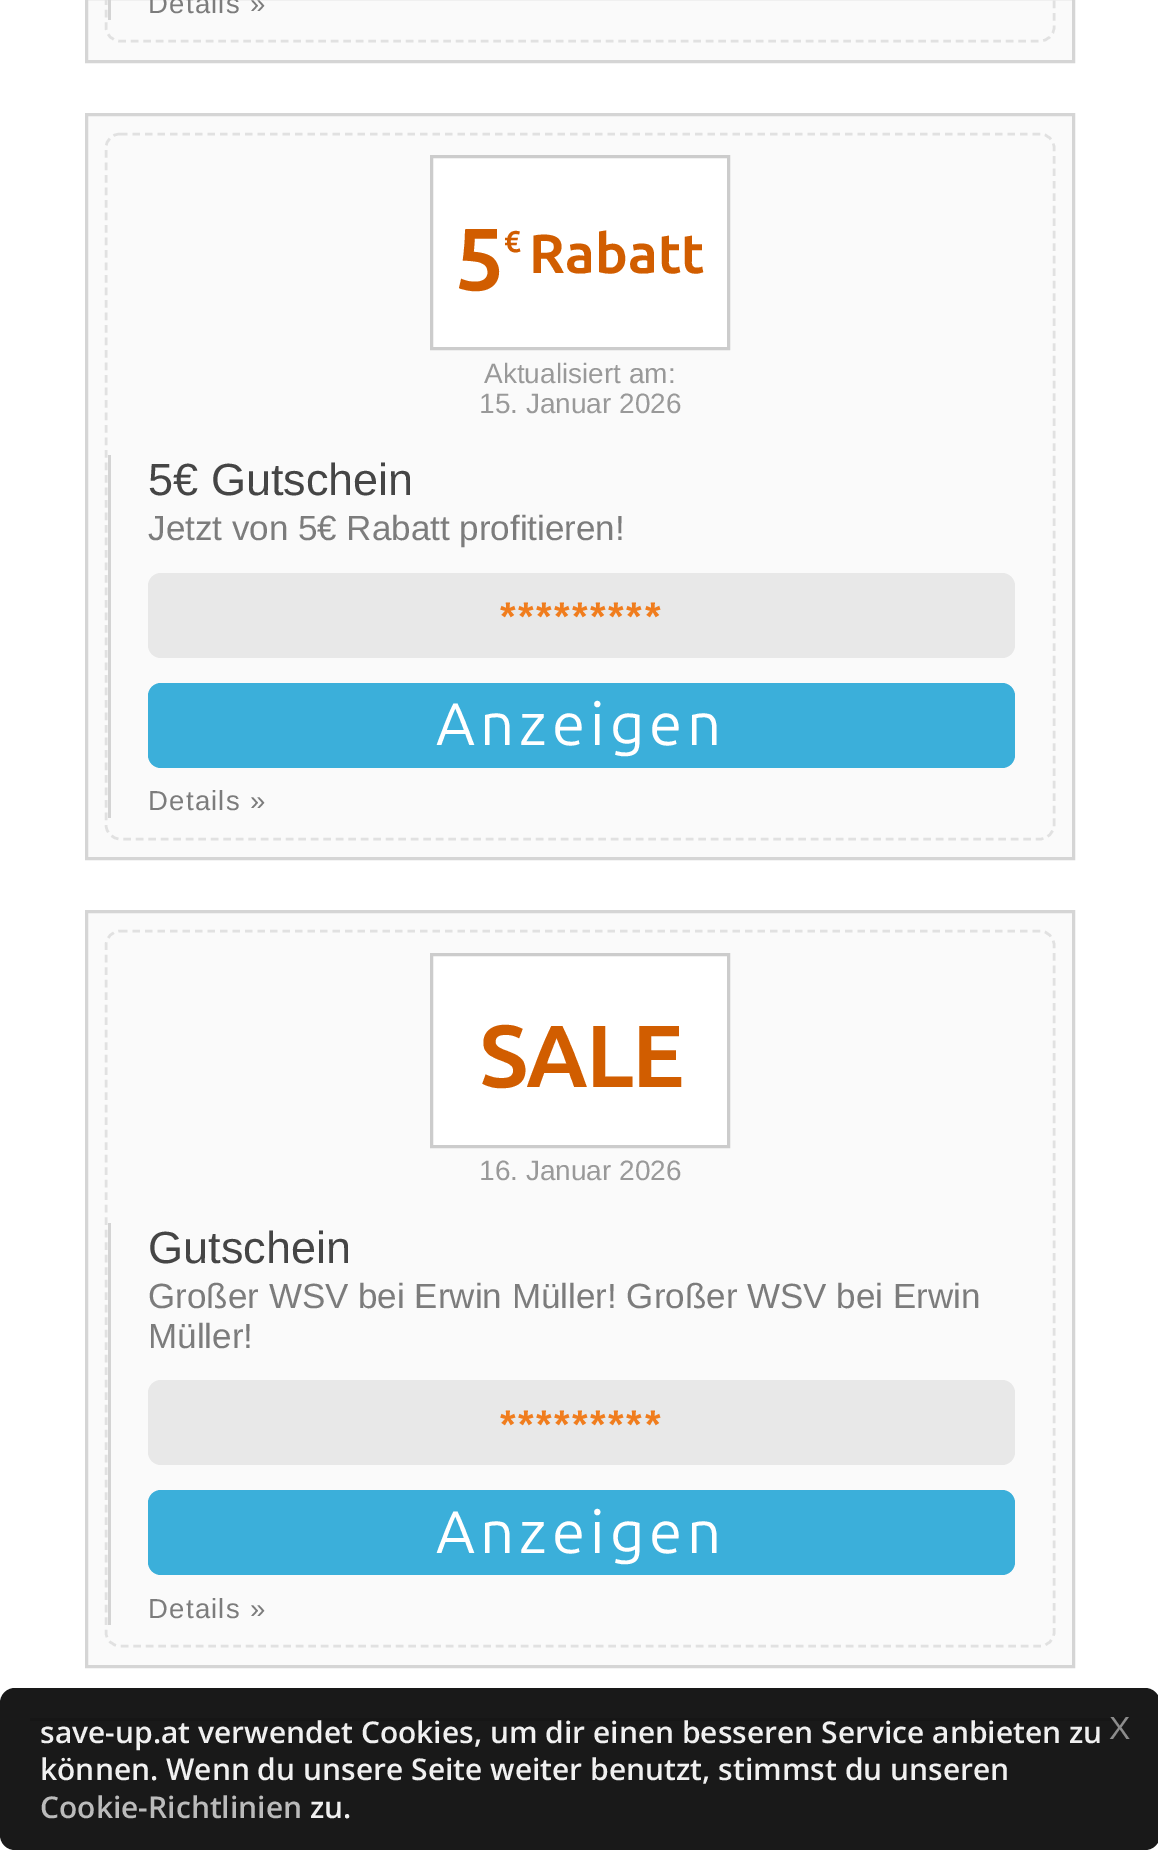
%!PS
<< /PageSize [1158 1850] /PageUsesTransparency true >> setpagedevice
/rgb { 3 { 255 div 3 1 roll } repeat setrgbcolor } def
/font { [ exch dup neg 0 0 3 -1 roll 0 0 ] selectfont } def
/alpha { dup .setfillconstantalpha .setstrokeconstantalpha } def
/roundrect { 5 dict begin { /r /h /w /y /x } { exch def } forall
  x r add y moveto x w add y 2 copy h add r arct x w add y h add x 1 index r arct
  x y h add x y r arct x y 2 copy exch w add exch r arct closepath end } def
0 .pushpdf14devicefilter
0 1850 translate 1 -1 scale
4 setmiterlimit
255 255 255 rgb
0 0 1158 1850 rectfill
221 221 221 rgb
30 1718 1100 3 rectfill
250 250 250 rgb
86.5 -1.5 moveto 1073.5 -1.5 lineto 1073.5 61.5 lineto 86.5 61.5 lineto closepath gsave fill grestore
213 213 213 rgb
3 setlinewidth
stroke
225 225 225 rgb
2.5 setlinewidth
[7.5 5] 0 setdash
120 -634 moveto 1040 -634 lineto 1047.5 -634 1054 -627.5 1054 -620 curveto 1054 27.5 lineto 1054 35 1047.5 41 1040 41 curveto 120 41 lineto 112.5 41 106 35 106 27.5 curveto 106 -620 lineto 106 -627.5 112.5 -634 120 -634 curveto closepath stroke
212 212 212 rgb
108 0 3 20 rectfill
250 250 250 rgb
86.5 114.5 moveto 1073.5 114.5 lineto 1073.5 858.5 lineto 86.5 858.5 lineto closepath gsave fill grestore
213 213 213 rgb
3 setlinewidth
[] 0 setdash
stroke
225 225 225 rgb
2.5 setlinewidth
[7.5 5] 0 setdash
120 134 moveto 1040 134 lineto 1047.5 134 1054 140 1054 147.5 curveto 1054 825 lineto 1054 832.5 1047.5 839 1040 839 curveto 120 839 lineto 112.5 839 106 832.5 106 825 curveto 106 147.5 lineto 106 140 112.5 134 120 134 curveto closepath stroke
255 255 255 rgb
431.5 156.5 moveto 728.5 156.5 lineto 728.5 348.5 lineto 431.5 348.5 lineto closepath gsave fill grestore
204 204 204 rgb
3 setlinewidth
[] 0 setdash
stroke
212 212 212 rgb
108 455 3 363 rectfill
232 232 232 rgb
148 573 867 85 13 roundrect fill
59 175 218 rgb
148 683 867 85 13 roundrect fill
250 250 250 rgb
86.5 911.5 moveto 1073.5 911.5 lineto 1073.5 1666.5 lineto 86.5 1666.5 lineto closepath gsave fill grestore
213 213 213 rgb
stroke
225 225 225 rgb
2.5 setlinewidth
[7.5 5] 0 setdash
120 931 moveto 1040 931 lineto 1047.5 931 1054 937.5 1054 945 curveto 1054 1632.5 lineto 1054 1640 1047.5 1646 1040 1646 curveto 120 1646 lineto 112.5 1646 106 1640 106 1632.5 curveto 106 945 lineto 106 937.5 112.5 931 120 931 curveto closepath stroke
255 255 255 rgb
431.5 954.5 moveto 728.5 954.5 lineto 728.5 1146.5 lineto 431.5 1146.5 lineto closepath gsave fill grestore
204 204 204 rgb
3 setlinewidth
[] 0 setdash
stroke
212 212 212 rgb
108 1223 3 402 rectfill
232 232 232 rgb
148 1380 867 85 13 roundrect fill
59 175 218 rgb
148 1490 867 85 13 roundrect fill
0.9 alpha
0 0 0 rgb
0 1688 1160 162 15 roundrect fill
/LiberationSans-Regular 27.5 font
1 alpha
124 124 124 rgb
148 13 moveto 1.25 0 (Details ») ashow
/Ubuntu-Bold 88 font
209 93 0 rgb
455 290 moveto -2.5 0 (5) ashow
/Ubuntu-Bold 30 font
504 252 moveto -2.5 0 (€) ashow
/Ubuntu-Bold 55 font
529 273 moveto (Rabatt) show
/LiberationSans-Regular 28 font
153 153 153 rgb
484 383 moveto (Aktualisiert am:) show
479 413 moveto (15. Januar 2026) show
/LiberationSans-Regular 45 font
69 69 69 rgb
148 495 moveto (5€ Gutschein) show
/LiberationSans-Regular 35 font
124 124 124 rgb
148 540 moveto (Jetzt von 5€ Rabatt profitieren!) show
/LiberationSans-Bold 40 font
240 125 30 rgb
500 630 moveto 2.5 0 (*********) ashow
/Ubuntu-Regular 60 font
255 255 255 rgb
436 745 moveto 5 0 (Anzeigen) ashow
/LiberationSans-Regular 27.5 font
124 124 124 rgb
148 810 moveto 1.25 0 (Details ») ashow
/Ubuntu-Bold 88 font
209 93 0 rgb
479 1087 moveto -2.5 0 (SALE) ashow
/LiberationSans-Regular 28 font
153 153 153 rgb
479 1180 moveto (16. Januar 2026) show
/LiberationSans-Regular 45 font
69 69 69 rgb
148 1263 moveto (Gutschein) show
/LiberationSans-Regular 35 font
124 124 124 rgb
148 1308 moveto (Großer WSV bei Erwin Müller! Großer WSV bei Erwin) show
148 1348 moveto (Müller!) show
/LiberationSans-Bold 40 font
240 125 30 rgb
500 1438 moveto 2.5 0 (*********) ashow
/Ubuntu-Regular 60 font
255 255 255 rgb
436 1553 moveto 5 0 (Anzeigen) ashow
/LiberationSans-Regular 27.5 font
124 124 124 rgb
148 1618 moveto 1.25 0 (Details ») ashow
/OpenSans-SemiBold 30 font
240 240 240 rgb
40 1743 moveto (save-up.at verwendet Cookies, um dir einen besseren Service anbieten zu) show
40 1780 moveto (können. Wenn du unsere Seite weiter benutzt, stimmst du unseren) show
187 187 187 rgb
40 1818 moveto (Cookie-Richtlinien) show
240 240 240 rgb
310 1818 moveto (zu.) show
/LiberationSans-Regular 32 font
140 140 140 rgb
1109 1739 moveto (X) show
.poppdf14devicefilter showpage
